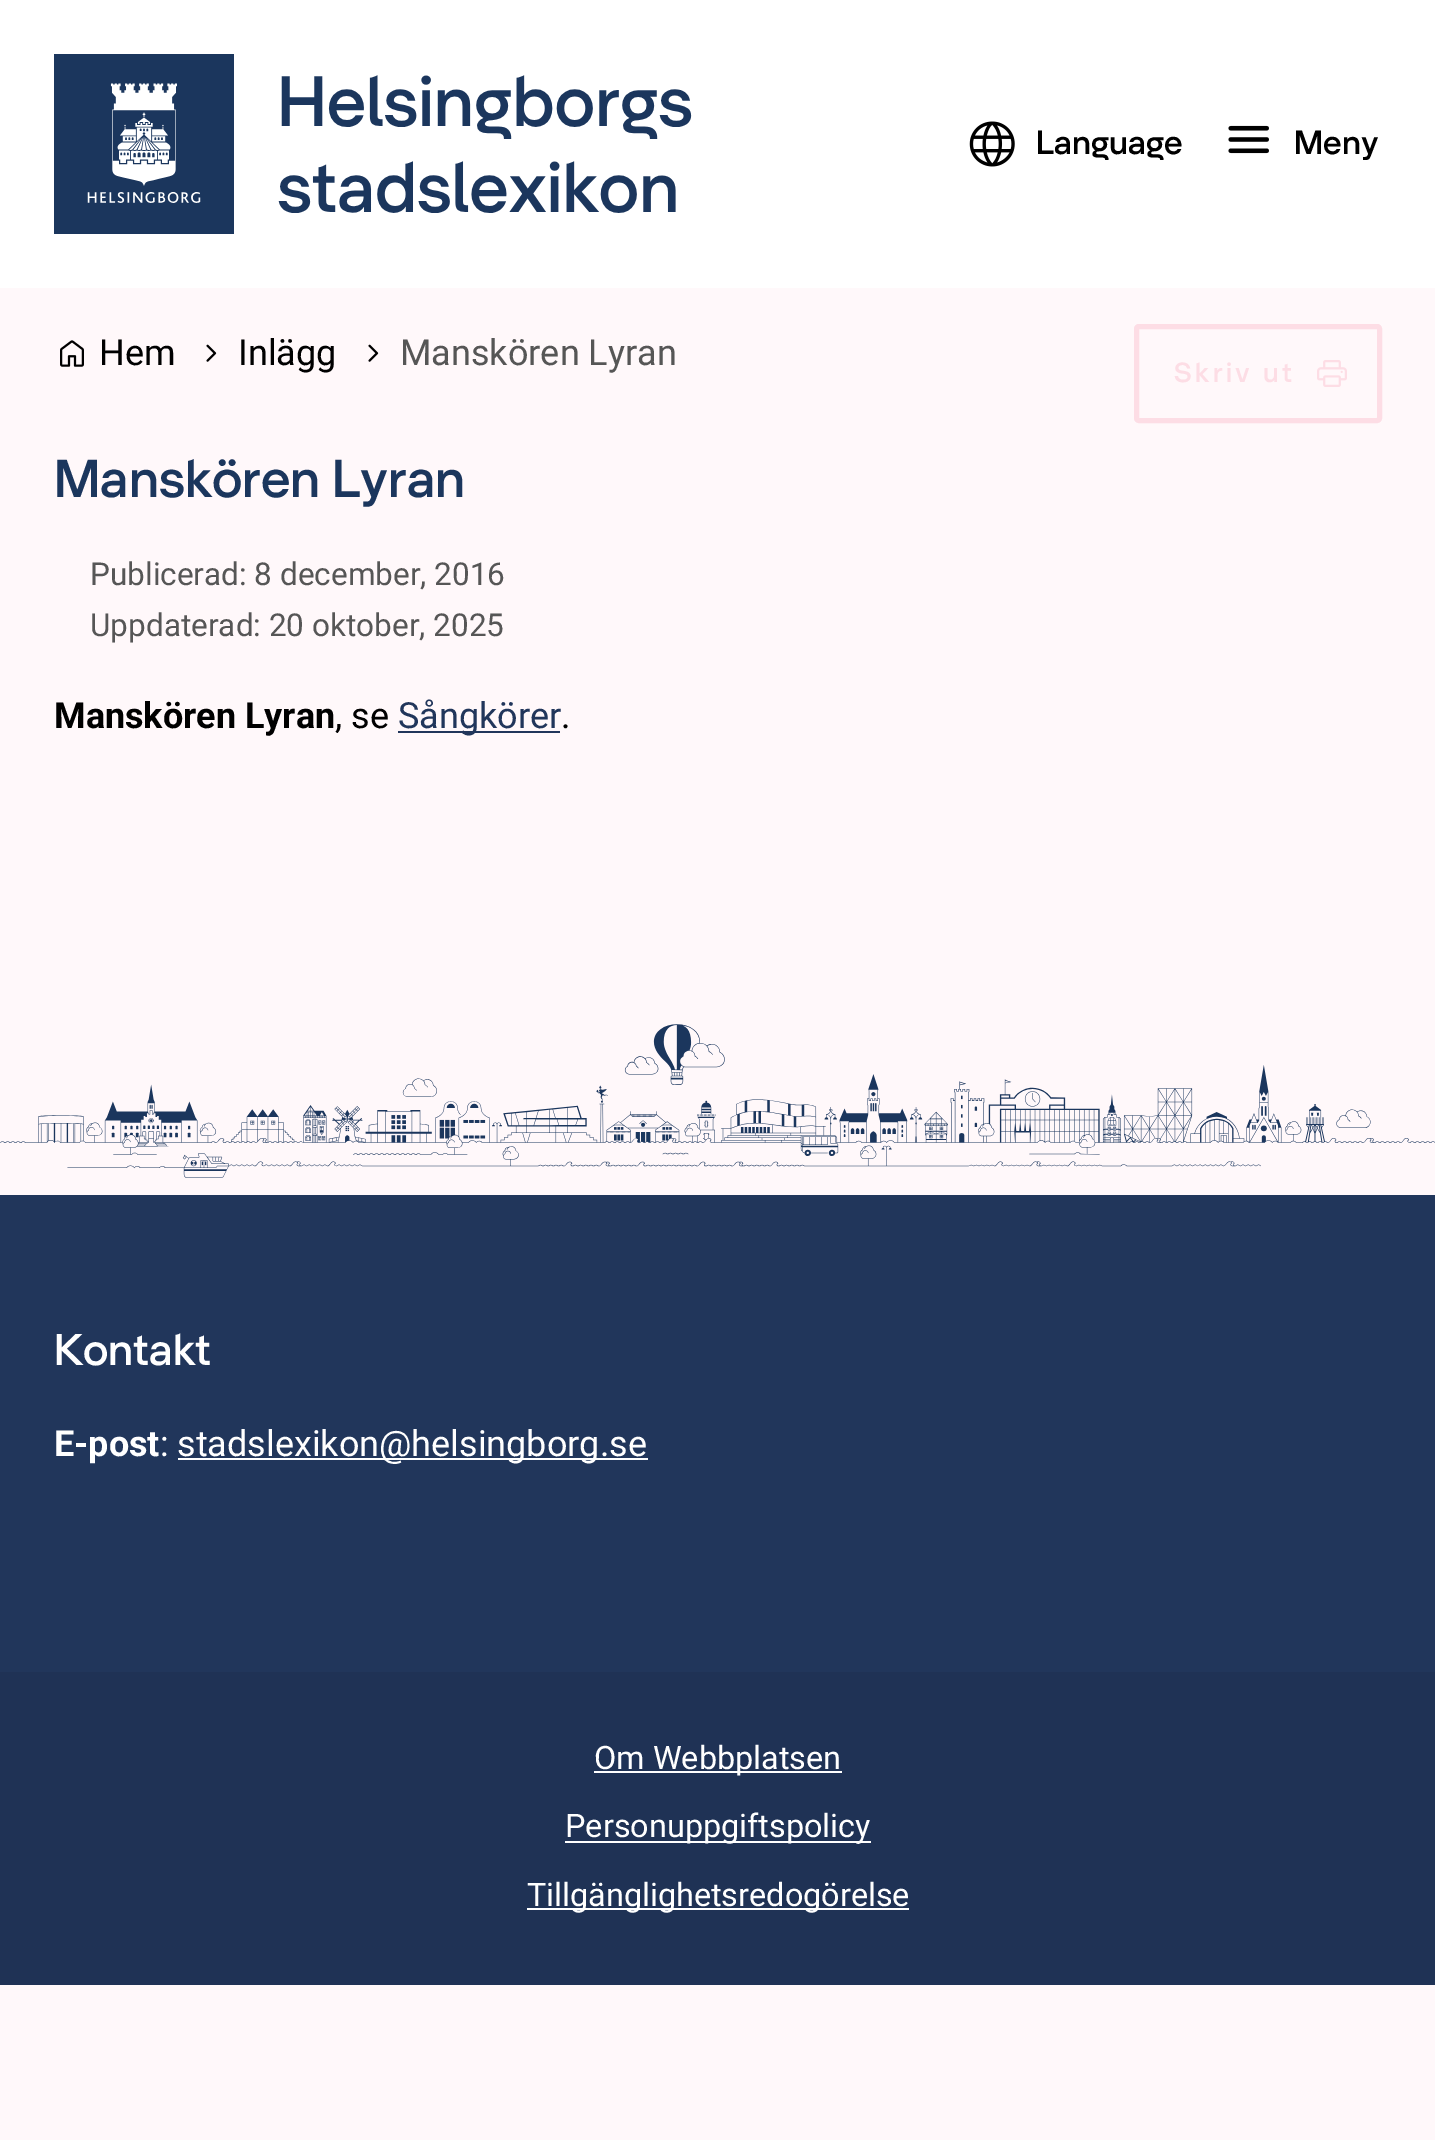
%!PS
<< /PageSize [1435 2140] >> setpagedevice
/rgb { 3 { 255 div 3 1 roll } repeat setrgbcolor } def
/font { [ exch dup neg 0 0 3 -1 roll 0 0 ] selectfont } def
/roundrect { 5 dict begin { /r /h /w /y /x } { exch def } forall
  x r add y moveto x w add y 2 copy h add r arct x w add y h add x 1 index r arct
  x y h add x y r arct x y 2 copy exch w add exch r arct closepath end } def
/picture { 5 dict begin { /h /w /y /x /name } { exch def } forall
  gsave x y translate w h scale
  w h 8 [w 0 0 h 0 0] name (r) file false 3 colorimage grestore end } def
0 2140 translate 1 -1 scale
4 setmiterlimit
255 248 250 rgb
0 0 1435 2140 rectfill
255 255 255 rgb
0 0 1435 288 rectfill
(img/1.rgb) 54 54 638 180 picture
(img/2.rgb) 969 121 46 46 picture
(img/3.rgb) 1228 125 41 29 picture
(img/4.rgb) 60 340 24 27 picture
(img/5.rgb) 206 344 11 18 picture
(img/5.rgb) 368 344 11 18 picture
253 221 229 rgb
5 setlinewidth
1136.5 326.5 243 94 2.5 roundrect stroke
(img/6.rgb) 1317 360 30 27 picture
33 54 91 rgb
398 731 162 2 rectfill
0 1195 1435 477 rectfill
(img/7.rgb) 0 1024 1435 154 picture
[
  [178 1458 470 2 255 255 255]
  [0 1672 1435 313 31 50 85]
  [594 1771 248 2 255 255 255]
  [565 1841 306 2 255 255 255]
  [527 1908 382 2 255 255 255]
] { aload pop rgb rectfill } forall
/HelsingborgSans-Medium 34 font
0 0 0 rgb
1036 154 moveto (Language) show
1294 154 moveto (Meny) show
/Roboto-Regular 36 font
99 365 moveto (Hem) show
238 365 moveto (Inlägg) show
86 86 86 rgb
400 365 moveto (Manskören Lyran) show
/HelsingborgSans-Medium 28 font
253 221 229 rgb
1174 382 moveto 3.5 0 (Skriv ut) ashow
/HelsingborgSans-Medium 54 font
27 54 93 rgb
54 497 moveto (Manskören Lyran) show
/Roboto-Regular 31.5 font
86 86 86 rgb
90 585 moveto (Publicerad: 8 december, 2016) show
90 636 moveto (Uppdaterad: 20 oktober, 2025) show
/Roboto-Bold 36 font
0 0 0 rgb
54 728 moveto (Manskören Lyran) show
/Roboto-Regular 36 font
335 728 moveto (, se) show
33 54 91 rgb
398 728 moveto (Sångkörer) show
0 0 0 rgb
561 728 moveto (.) show
/HelsingborgSans-Medium 45 font
255 255 255 rgb
54 1365 moveto (Kontakt) show
/Roboto-Bold 36 font
54 1456 moveto (E-post) show
/Roboto-Regular 36 font
160 1456 moveto (:) show
177 1456 moveto (stadslexikon@helsingborg.se) show
/Roboto-Regular 32.4 font
[
  [(Om Webbplatsen) 594 1769]
  [(Personuppgiftspolicy) 565 1837]
  [(Tillgänglighetsredogörelse) 527 1906]
] { aload pop moveto show } forall
showpage
